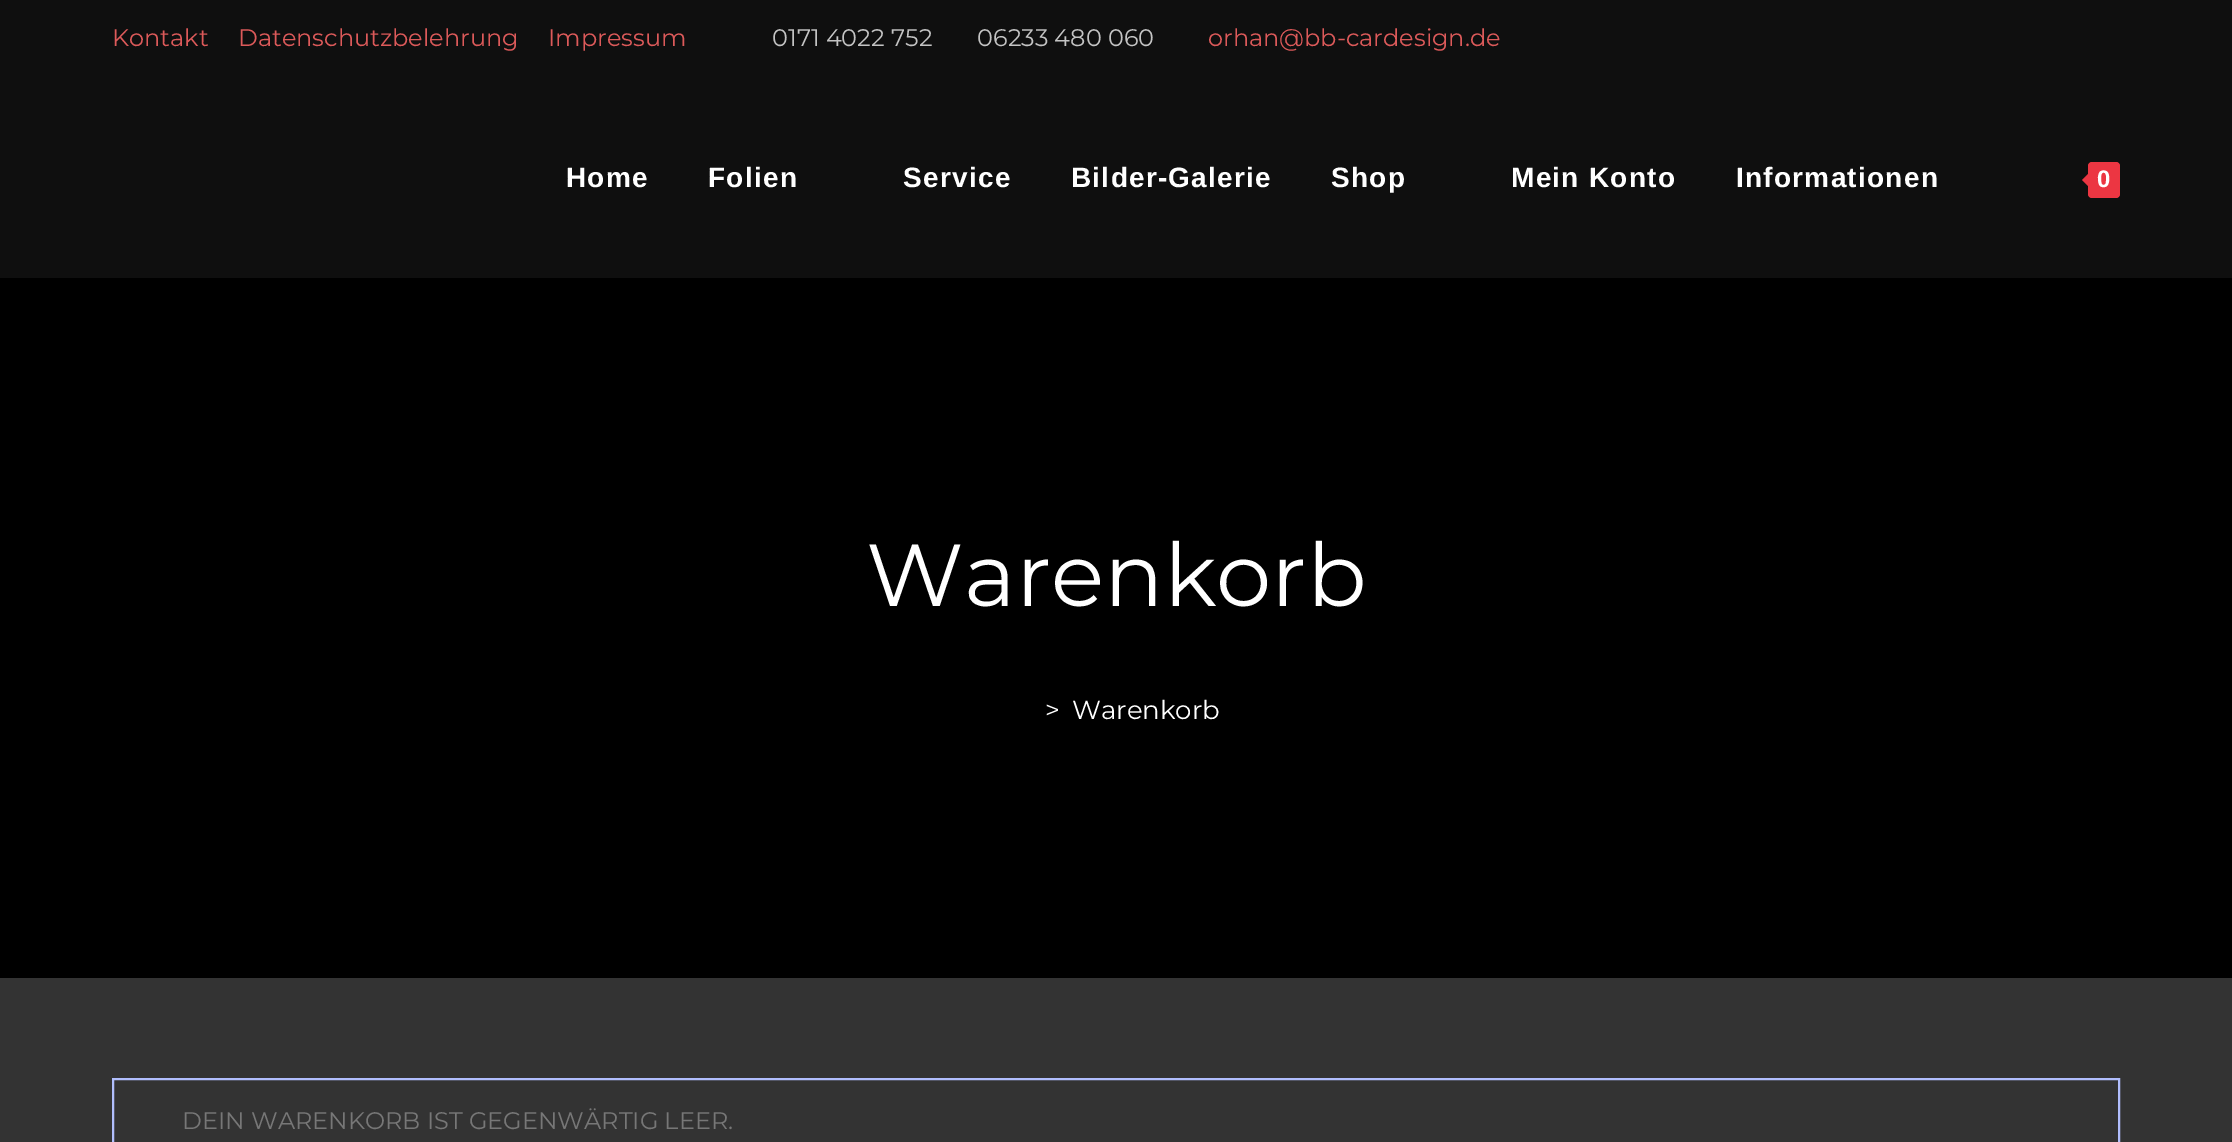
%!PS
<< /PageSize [2232 1142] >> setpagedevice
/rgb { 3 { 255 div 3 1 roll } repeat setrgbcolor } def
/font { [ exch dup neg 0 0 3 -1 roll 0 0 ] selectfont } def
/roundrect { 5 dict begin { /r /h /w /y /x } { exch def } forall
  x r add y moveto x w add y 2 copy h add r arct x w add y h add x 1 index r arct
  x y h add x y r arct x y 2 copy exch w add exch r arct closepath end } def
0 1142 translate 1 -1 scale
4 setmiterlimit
51 51 51 rgb
0 0 2232 1142 rectfill
15 15 15 rgb
0 0 2232 278 rectfill
236 54 66 rgb
2088 162 32 36 4 roundrect fill
2092 170 moveto 2092 190 lineto 2082 180 lineto closepath fill
0 0 0 rgb
0 278 2232 700 rectfill
177 190 253 rgb
2 setlinewidth
113 1079 2006 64 rectstroke
/Montserrat-Regular 24 font
221 90 90 rgb
[
  [(Kontakt) 112 46]
  [(Datenschutzbelehrung) 238 46]
  [(Impressum) 548 46]
] { aload pop moveto show } forall
196 196 196 rgb
772 46 moveto (0171 4022 752) show
977 46 moveto (06233 480 060) show
221 90 90 rgb
1208 46 moveto (orhan@bb-cardesign.de) show
/LiberationSans-Bold 28 font
255 255 255 rgb
566 187 moveto 1.25 0 (Home) ashow
708 187 moveto 1.25 0 (Folien) ashow
903 187 moveto 1.25 0 (Service) ashow
1071 187 moveto 1.25 0 (Bilder-Galerie) ashow
1331 187 moveto 1.25 0 (Shop) ashow
1511 187 moveto 1.25 0 (Mein Konto) ashow
1736 187 moveto 1.25 0 (Informationen) ashow
/LiberationSans-Bold 24 font
2097 187 moveto (0) show
/Montserrat-Regular 88 font
866 606 moveto (Warenkorb) show
/Montserrat-Regular 26 font
1045 719 moveto (>) show
1072 719 moveto (Warenkorb) show
/Montserrat-Regular 24 font
119 119 119 rgb
182 1129 moveto (DEIN WARENKORB IST GEGENWÄRTIG LEER.) show
showpage
